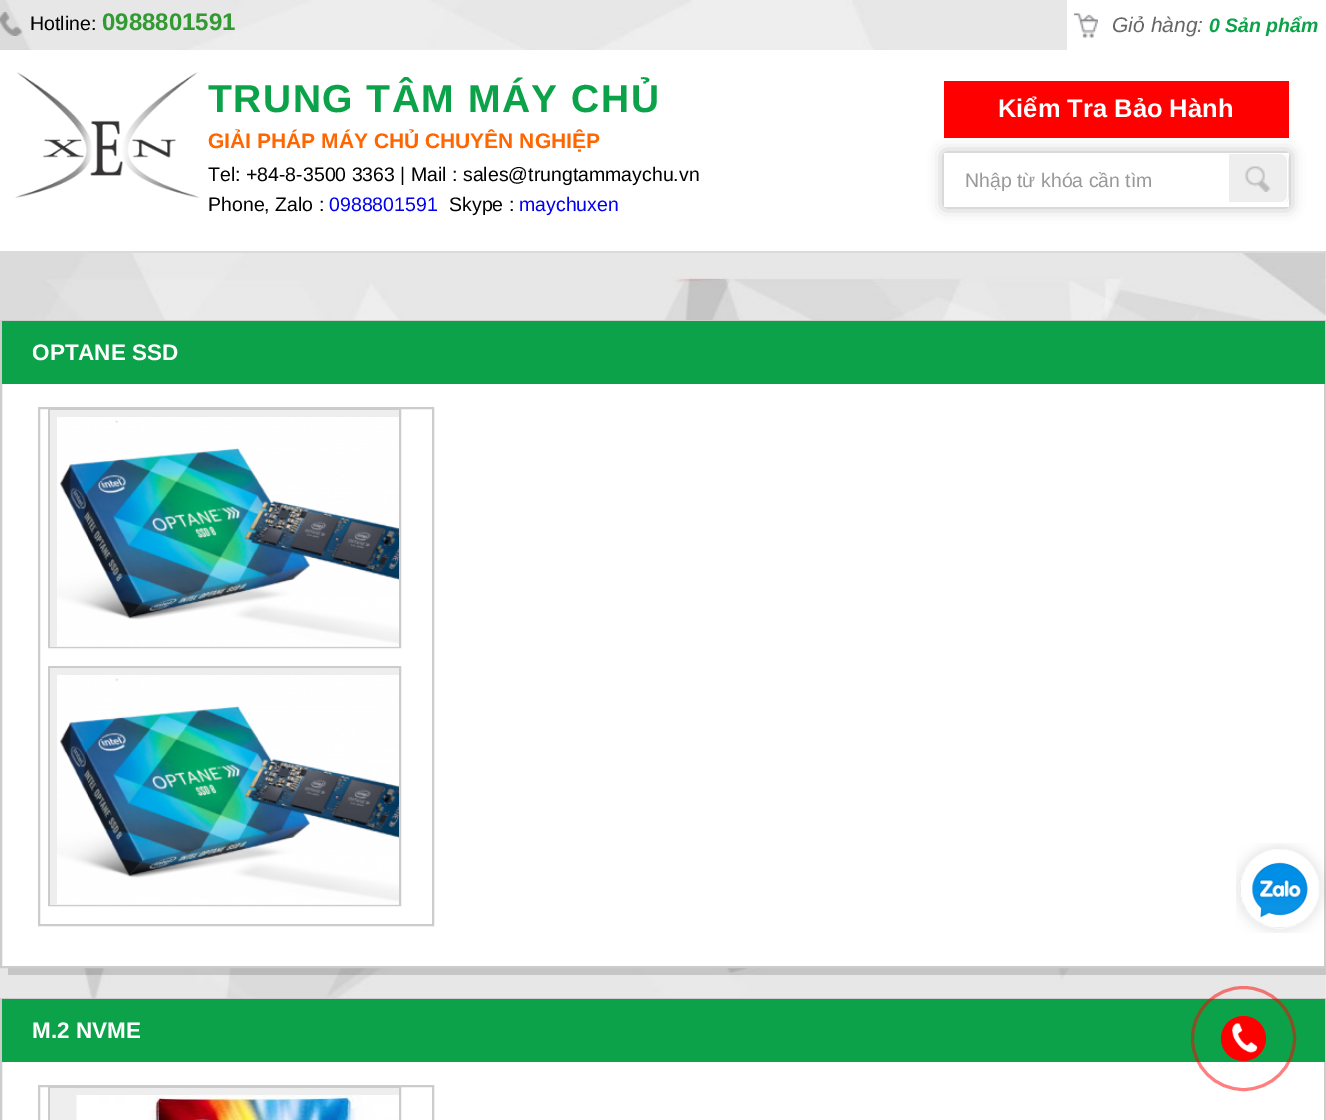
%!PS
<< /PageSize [1326 1120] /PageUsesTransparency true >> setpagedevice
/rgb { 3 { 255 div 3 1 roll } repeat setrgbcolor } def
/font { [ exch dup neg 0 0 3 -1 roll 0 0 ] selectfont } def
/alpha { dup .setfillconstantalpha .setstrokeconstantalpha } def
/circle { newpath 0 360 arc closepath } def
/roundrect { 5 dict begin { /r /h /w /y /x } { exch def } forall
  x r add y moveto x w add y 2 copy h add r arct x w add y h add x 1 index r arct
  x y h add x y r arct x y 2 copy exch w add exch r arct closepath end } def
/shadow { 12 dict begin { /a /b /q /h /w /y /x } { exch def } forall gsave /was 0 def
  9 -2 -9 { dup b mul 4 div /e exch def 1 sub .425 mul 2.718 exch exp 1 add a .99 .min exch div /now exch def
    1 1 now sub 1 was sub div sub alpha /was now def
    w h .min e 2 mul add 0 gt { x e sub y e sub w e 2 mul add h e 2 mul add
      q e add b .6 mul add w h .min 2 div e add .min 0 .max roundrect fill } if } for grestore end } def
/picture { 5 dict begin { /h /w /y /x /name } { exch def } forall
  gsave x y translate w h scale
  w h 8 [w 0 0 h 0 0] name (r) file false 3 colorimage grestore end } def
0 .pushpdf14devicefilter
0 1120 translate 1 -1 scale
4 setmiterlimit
255 255 255 rgb
0 0 1326 1120 rectfill
(img/1.rgb) 0 0 1326 998 picture
(img/2.rgb) 0 12 23 24 picture
1067 0 259 50 rectfill
(img/3.rgb) 1074 13 24 25 picture
0 50 1326 201 rectfill
218 218 218 rgb
87 251 1239 2 rectfill
(img/4.rgb) 15 72 185 126 picture
255 0 0 rgb
944 81 345 57 rectfill
gsave
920 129 moveto 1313 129 lineto 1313 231 lineto 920 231 lineto closepath 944 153 moveto 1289 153 lineto 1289 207 lineto 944 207 lineto closepath eoclip newpath
0 0 0 rgb
944 153 345 54 0 7.5 0.3 shadow
grestore
238 238 238 rgb
1229 153 moveto 1281 153 lineto 1285.5 153 1289 156.5 1289 161 curveto 1289 196 lineto 1289 200.5 1285.5 204 1281 204 curveto 1229 204 lineto closepath fill
(img/5.rgb) 1245 166 26 26 picture
255 255 255 rgb
1228 153 moveto 1281 153 lineto 1285 153 1288 156 1288 160 curveto 1288 196 lineto 1288 201 1285 204 1281 204 curveto 1228 204 lineto closepath 1228 154 moveto 1281 154 lineto 1284 154 1287 157 1287 160 curveto 1287 196 lineto 1287 200 1284 202 1281 202 curveto 1228 202 lineto closepath eofill
0.15 alpha
0 0 0 rgb
8 968 moveto 8 975 lineto 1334 975 lineto 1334 327 lineto 1326 327 lineto 1326 968 lineto closepath fill
1 alpha
255 255 255 rgb
2 384 1322 582 rectfill
204 204 204 rgb
2 setlinewidth
1 321 1324 646 rectstroke
12 162 73 rgb
2 321 1323 63 rectfill
204 204 204 rgb
39 408 394 517 rectstroke
49 409 351 238 rectstroke
238 238 238 rgb
50 410 349 237 rectfill
(img/6.rgb) 57 417 342 230 picture
204 204 204 rgb
49 667 351 238 rectstroke
238 238 238 rgb
50 668 349 237 rectfill
(img/7.rgb) 57 675 342 230 picture
204 204 204 rgb
1 999 1324 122 rectstroke
12 162 73 rgb
2 999 1323 63 rectfill
204 204 204 rgb
39 1086 394 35 rectstroke
49 1087 351 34 rectstroke
238 238 238 rgb
50 1088 349 32 rectfill
(img/8.rgb) 76 1095 323 25 picture
(img/9.rgb) 1236 843 90 90 picture
0.5 alpha
255 0 0 rgb
3 setlinewidth
1243.5 1038.5 51 circle stroke
1 alpha
1243.5 1038.5 22.5 circle fill
(img/10.rgb) 1232 1023 26 30 picture
/LiberationSans-Regular 19.5 font
0 0 0 rgb
30 30 moveto (Hotline:) show
/LiberationSans-Bold 24 font
51 153 51 rgb
102 30 moveto (0988801591) show
/LiberationSans-Italic 21 font
102 102 102 rgb
1112 32 moveto (Giỏ hàng:) show
/LiberationSans-BoldItalic 19.5 font
12 162 73 rgb
1209 32 moveto (0 Sản phẩm) show
/LiberationSans-Bold 39 font
208 112 moveto 1.5 0 (TRUNG TÂM MÁY CHỦ) ashow
/LiberationSans-Bold 21 font
255 102 0 rgb
208 148 moveto (GIẢI PHÁP MÁY CHỦ CHUYÊN NGHIỆP) show
/LiberationSans-Regular 19.5 font
0 0 0 rgb
208 181 moveto (Tel: +84-8-3500 3363 | Mail : sales@trungtammaychu.vn) show
208 211 moveto (Phone, Zalo :) show
0 0 238 rgb
329 211 moveto (0988801591) show
0 0 0 rgb
449 211 moveto (Skype :) show
0 0 238 rgb
519 211 moveto (maychuxen) show
/LiberationSans-Bold 25.5 font
255 255 255 rgb
998 117 moveto (Kiểm Tra Bảo Hành) show
/LiberationSans-Regular 19.5 font
153 153 153 rgb
965 187 moveto (Nhập từ khóa cần tìm) show
/LiberationSans-Bold 22.5 font
255 255 255 rgb
32 360 moveto (OPTANE SSD) show
32 1038 moveto (M.2 NVME) show
.poppdf14devicefilter showpage
